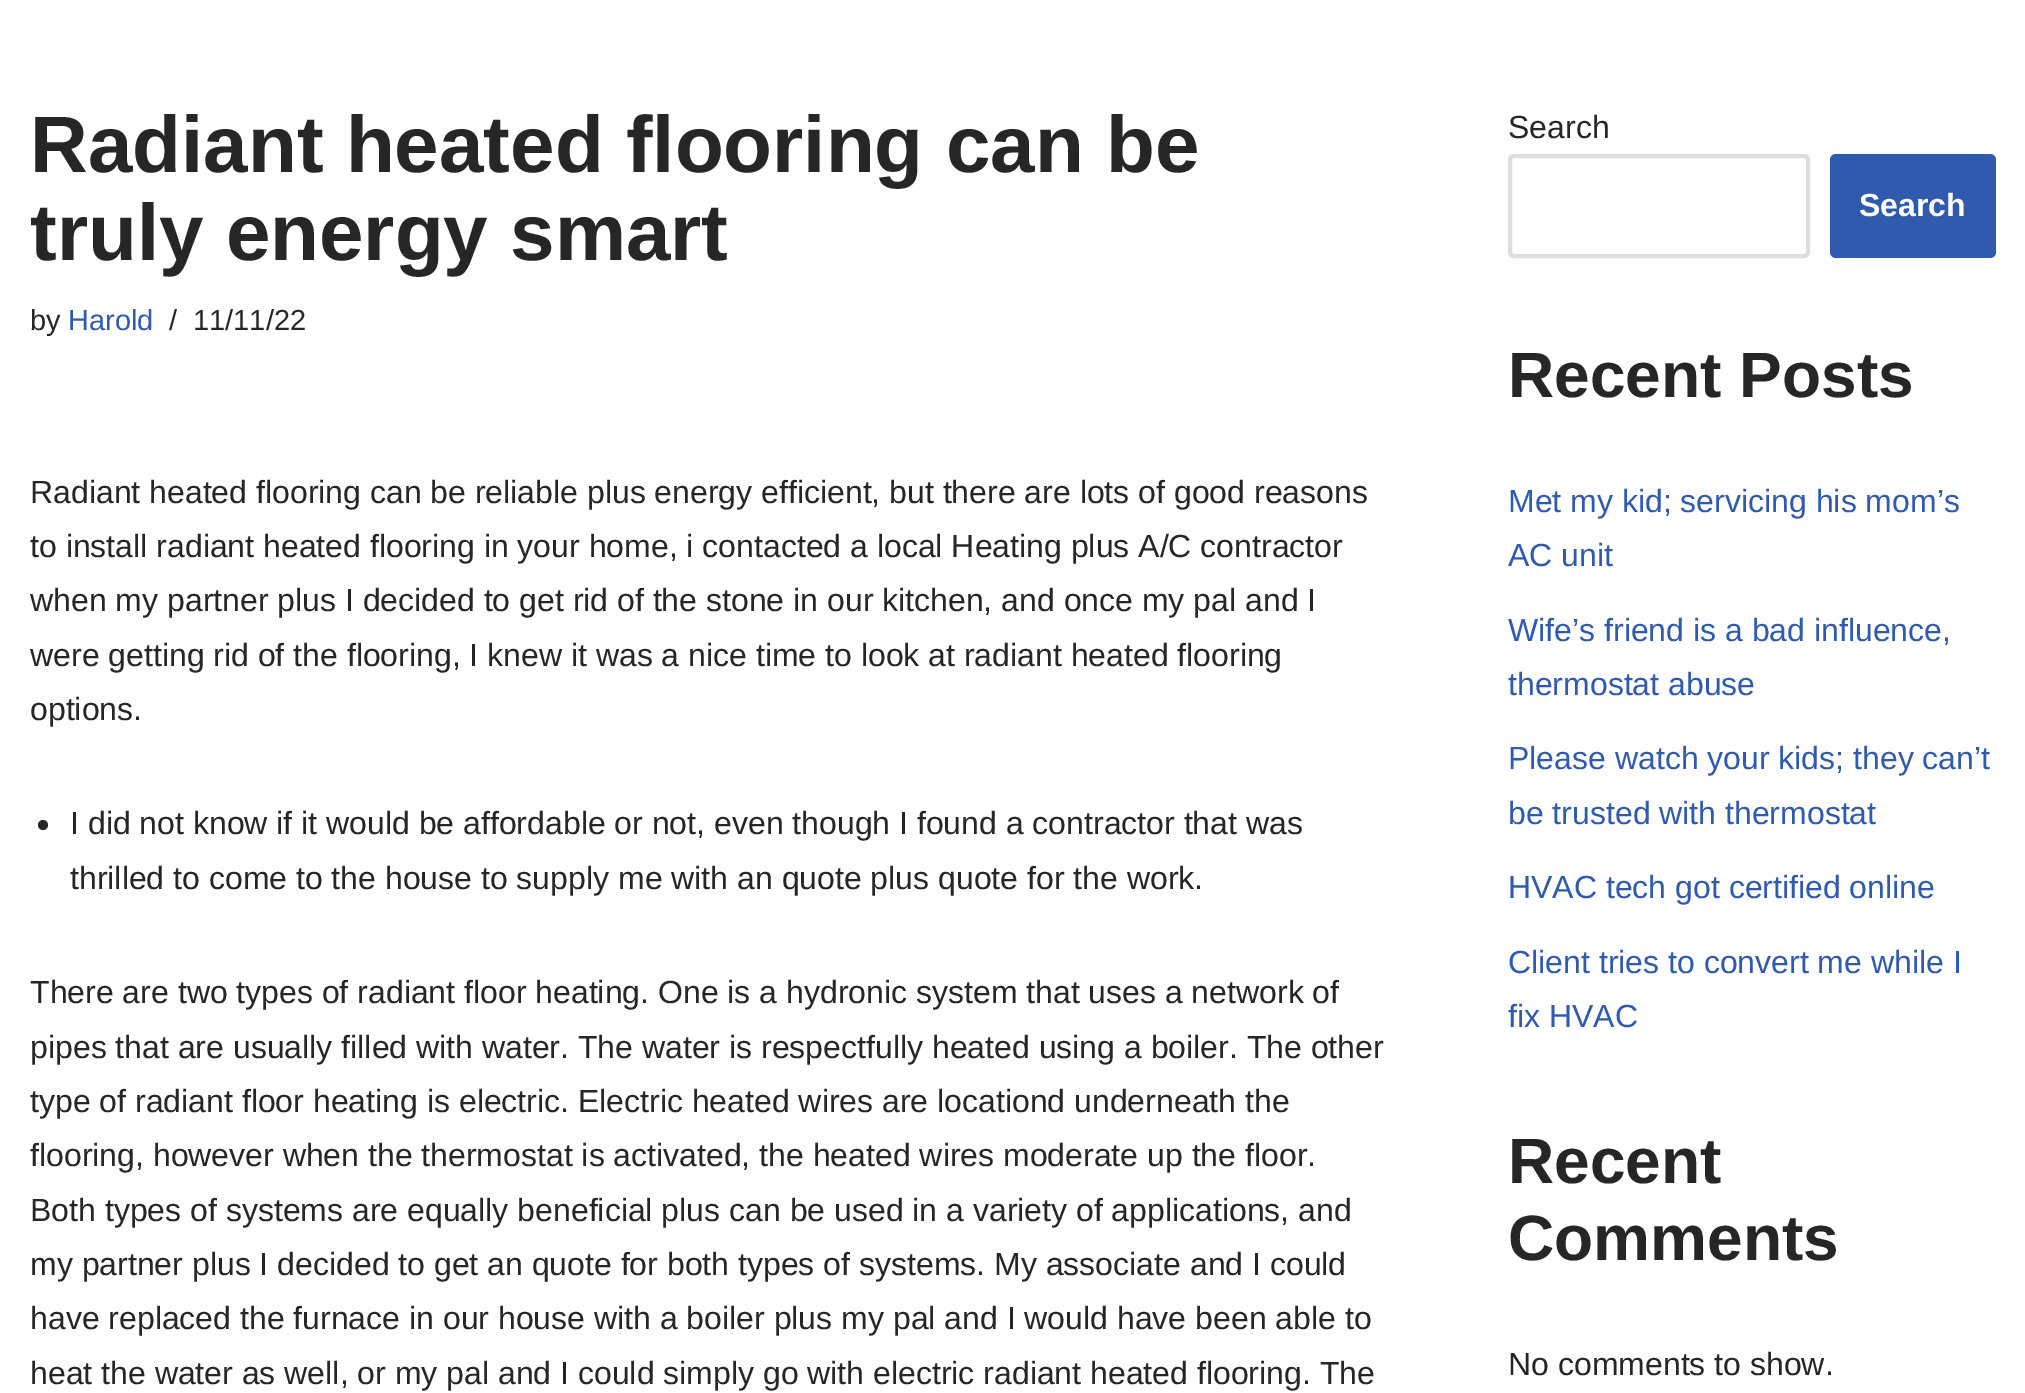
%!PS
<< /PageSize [2025 1393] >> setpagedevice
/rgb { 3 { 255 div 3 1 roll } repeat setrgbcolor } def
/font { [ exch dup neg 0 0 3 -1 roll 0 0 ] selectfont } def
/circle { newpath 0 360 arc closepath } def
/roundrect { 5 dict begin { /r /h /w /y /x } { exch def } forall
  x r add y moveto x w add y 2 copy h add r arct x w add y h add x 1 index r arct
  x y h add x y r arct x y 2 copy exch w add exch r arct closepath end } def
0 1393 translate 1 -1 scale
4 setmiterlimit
255 255 255 rgb
0 0 2025 1393 rectfill
39 38 38 rgb
43 825 5 circle fill
221 221 221 rgb
4 setlinewidth
1510 156 298 100 4 roundrect stroke
47 90 174 rgb
1830 154 166 104 6 roundrect fill
/LiberationSans-Bold 80 font
39 38 38 rgb
30 172 moveto (Radiant heated flooring can be) show
30 260 moveto (truly energy smart) show
/LiberationSans-Regular 29 font
30 330 moveto (by) show
47 90 174 rgb
68 330 moveto (Harold) show
39 38 38 rgb
169 330 moveto (/) show
193 330 moveto (11/11/22) show
/LiberationSans-Regular 32 font
[
  [(Radiant heated flooring can be reliable plus energy efficient, but there are lots of good reasons) 30 503]
  [(to install radiant heated flooring in your home, i contacted a local Heating plus A/C contractor) 30 557]
  [(when my partner plus I decided to get rid of the stone in our kitchen, and once my pal and I) 30 611]
  [(were getting rid of the flooring, I knew it was a nice time to look at radiant heated flooring) 30 666]
  [(options.) 30 720]
  [(I did not know if it would be affordable or not, even though I found a contractor that was) 70 834]
  [(thrilled to come to the house to supply me with an quote plus quote for the work.) 70 889]
  [(There are two types of radiant floor heating. One is a hydronic system that uses a network of) 30 1003]
  [(pipes that are usually filled with water. The water is respectfully heated using a boiler. The other) 30 1058]
  [(type of radiant floor heating is electric. Electric heated wires are locationd underneath the) 30 1112]
  [(flooring, however when the thermostat is activated, the heated wires moderate up the floor.) 30 1166]
  [(Both types of systems are equally beneficial plus can be used in a variety of applications, and) 30 1221]
  [(my partner plus I decided to get an quote for both types of systems. My associate and I could) 30 1275]
  [(have replaced the furnace in our house with a boiler plus my pal and I would have been able to) 30 1329]
  [(heat the water as well, or my pal and I could simply go with electric radiant heated flooring. The) 30 1384]
  [(Search) 1508 138]
] { aload pop moveto show } forall
/LiberationSans-Bold 32 font
255 255 255 rgb
1859 216 moveto (Search) show
/LiberationSans-Bold 64 font
39 38 38 rgb
1508 397 moveto (Recent Posts) show
/LiberationSans-Regular 32 font
47 90 174 rgb
[
  [(Met my kid; servicing his mom’s) 1508 512]
  [(AC unit) 1508 566]
  [(Wife’s friend is a bad influence,) 1508 641]
  [(thermostat abuse) 1508 695]
  [(Please watch your kids; they can’t) 1508 769]
  [(be trusted with thermostat) 1508 824]
  [(HVAC tech got certified online) 1508 898]
  [(Client tries to convert me while I) 1508 973]
  [(fix HVAC) 1508 1027]
] { aload pop moveto show } forall
/LiberationSans-Bold 64 font
39 38 38 rgb
1508 1183 moveto (Recent) show
1508 1260 moveto (Comments) show
/LiberationSans-Regular 32 font
1508 1375 moveto (No comments to show.) show
showpage
